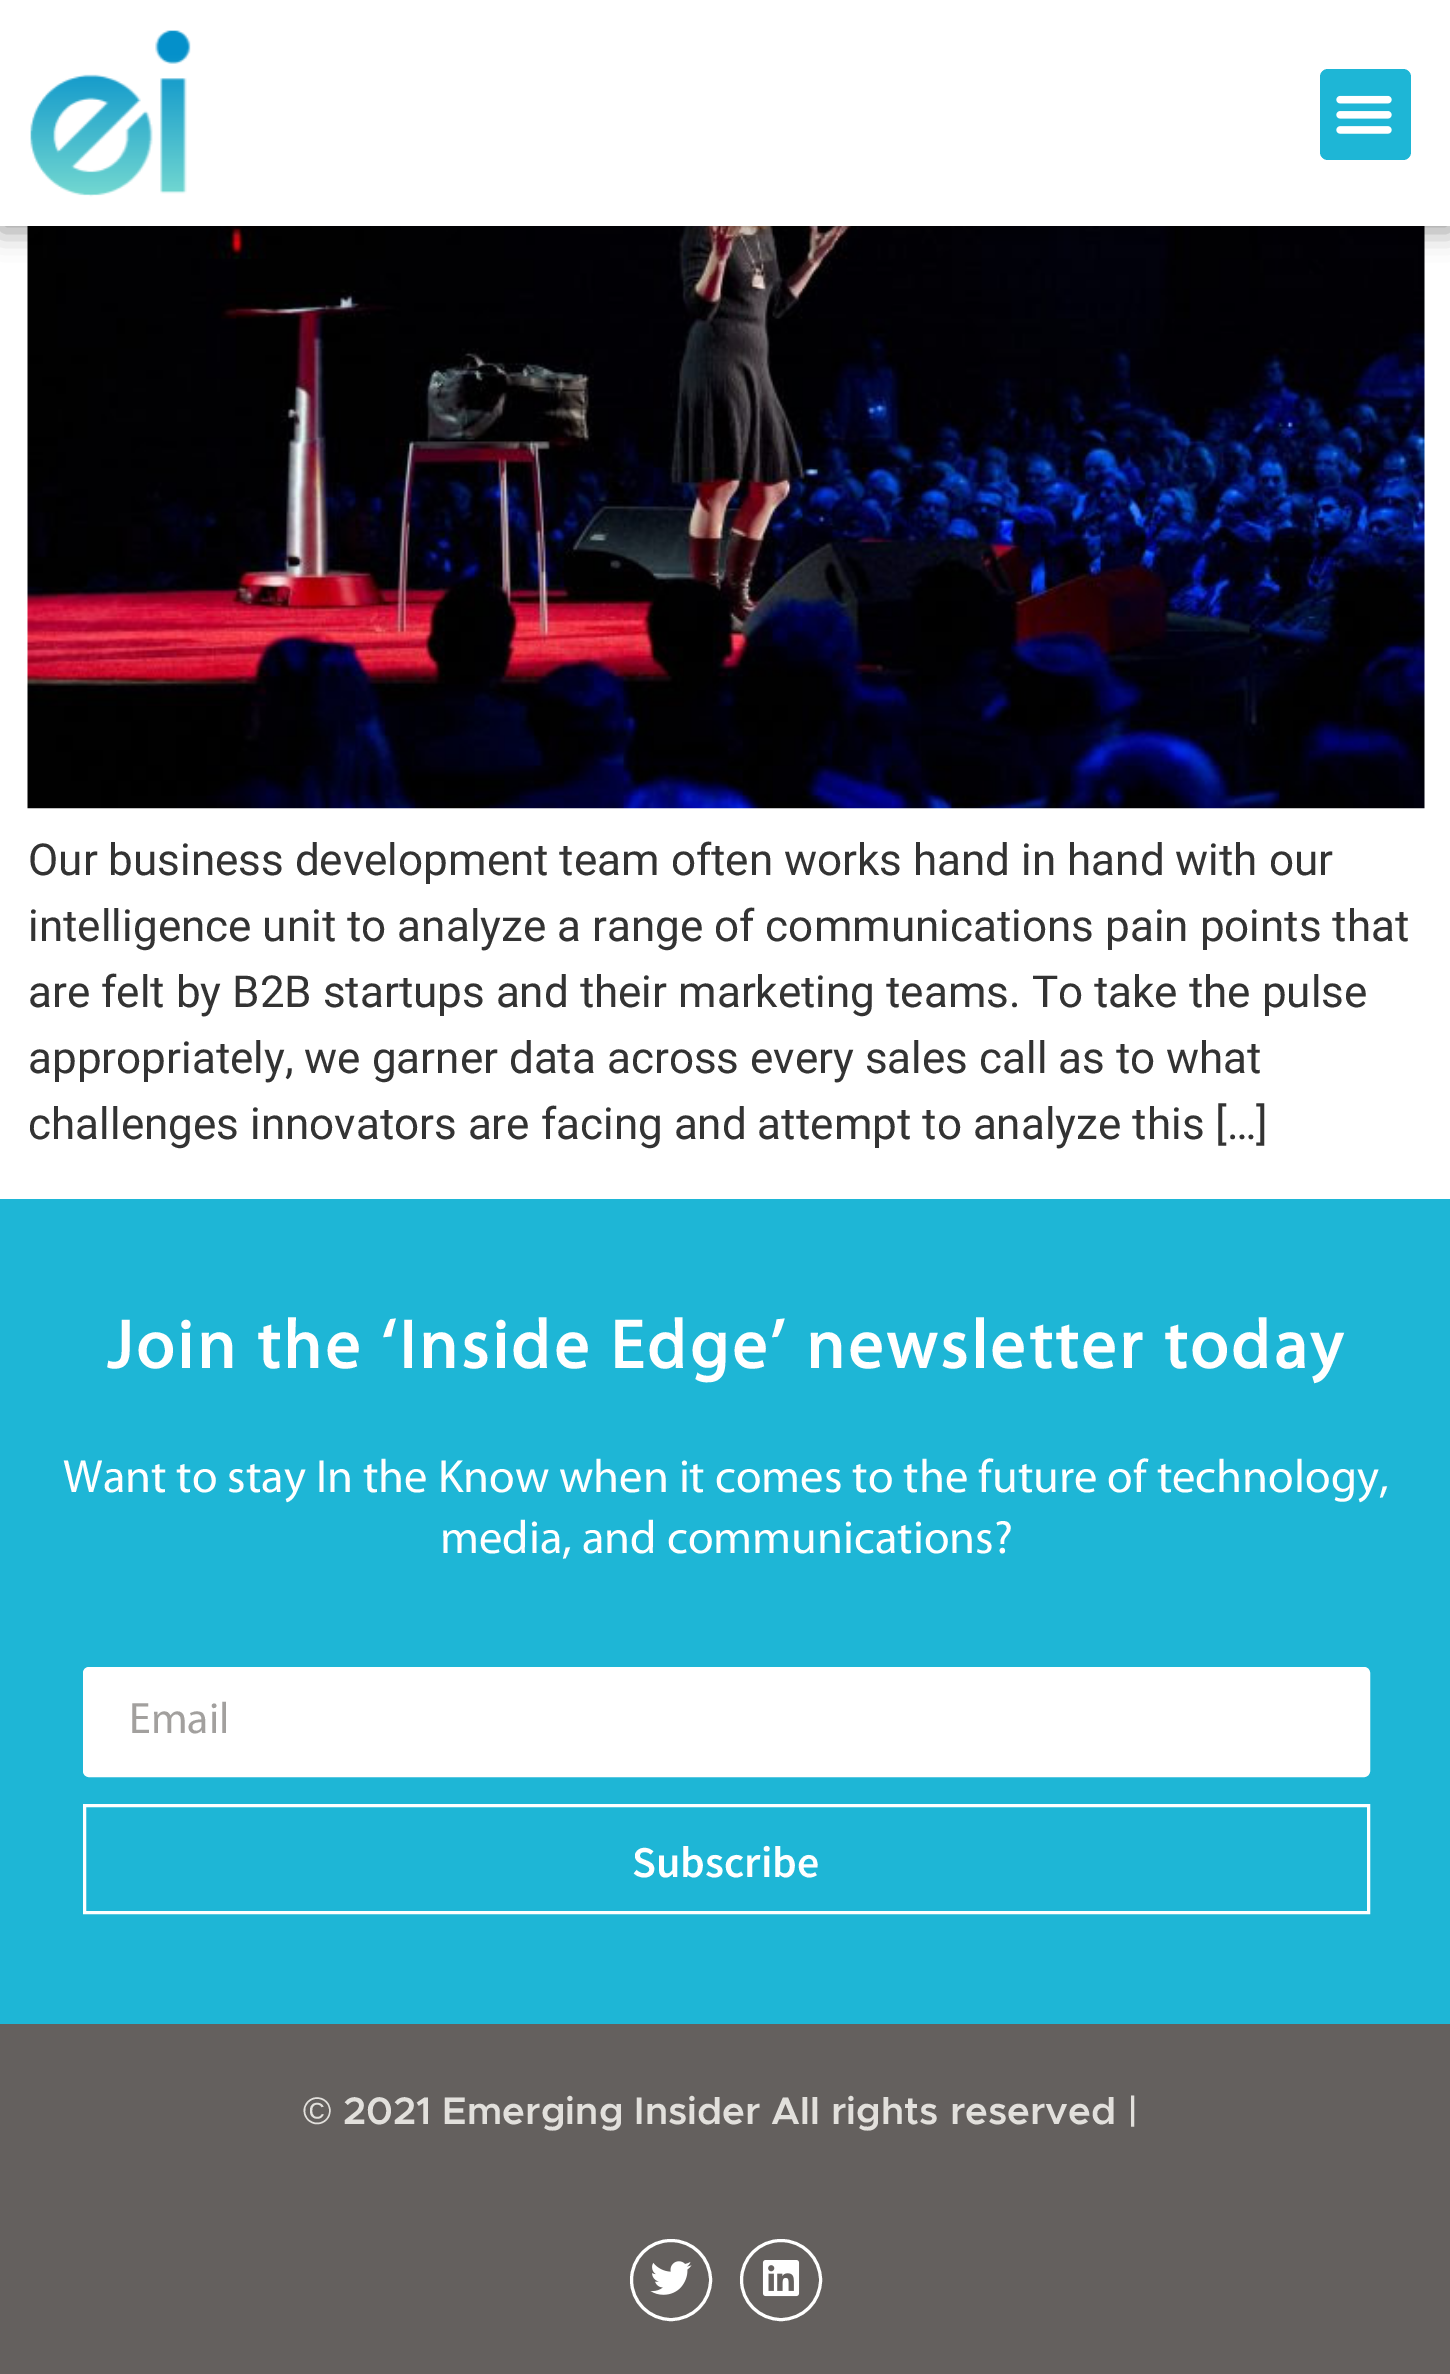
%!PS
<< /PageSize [1450 2374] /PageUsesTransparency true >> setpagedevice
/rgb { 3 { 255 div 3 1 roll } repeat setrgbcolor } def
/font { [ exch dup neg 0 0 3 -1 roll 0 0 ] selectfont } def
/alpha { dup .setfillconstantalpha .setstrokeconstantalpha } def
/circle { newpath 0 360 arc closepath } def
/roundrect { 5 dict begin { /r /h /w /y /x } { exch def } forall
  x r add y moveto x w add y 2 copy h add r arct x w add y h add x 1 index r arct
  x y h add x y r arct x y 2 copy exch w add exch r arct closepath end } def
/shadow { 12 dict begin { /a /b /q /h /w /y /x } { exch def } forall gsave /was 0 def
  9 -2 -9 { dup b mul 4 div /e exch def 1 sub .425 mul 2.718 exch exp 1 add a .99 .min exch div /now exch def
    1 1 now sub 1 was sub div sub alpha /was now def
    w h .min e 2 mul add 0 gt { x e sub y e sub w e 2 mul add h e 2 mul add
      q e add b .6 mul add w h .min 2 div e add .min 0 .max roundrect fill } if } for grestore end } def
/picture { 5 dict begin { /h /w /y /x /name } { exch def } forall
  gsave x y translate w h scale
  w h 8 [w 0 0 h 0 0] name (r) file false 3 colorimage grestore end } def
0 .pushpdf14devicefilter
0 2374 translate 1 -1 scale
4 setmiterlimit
255 255 255 rgb
0 0 1450 2374 rectfill
(img/3.rgb) 27 226 1398 583 picture
0 0 0 rgb
0 6 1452 225 0 14 0.4 shadow
255 255 255 rgb
0 0 1450 226 rectfill
(img/1.rgb) 30 30 161 167 picture
30 182 214 rgb
1320 69 91 91 8 roundrect fill
(img/2.rgb) 1336 95 56 39 picture
0 1199 1450 825 rectfill
255 255 255 rgb
84.5 1668.5 1284 107 4.5 roundrect gsave fill grestore
3 setlinewidth
stroke
84.5 1805.5 1284 107 rectstroke
100 96 94 rgb
0 2024 1450 350 rectfill
255 255 255 rgb
671 2280 39.5 circle stroke
(img/4.rgb) 650 2261 42 34 picture
781 2280 39.5 circle stroke
(img/5.rgb) 762 2260 38 37 picture
/Roboto-Regular 44 font
51 51 51 rgb
[
  [(Our business development team often works hand in hand with our) 28 875]
  [(intelligence unit to analyze a range of communications pain points that) 28 941]
  [(are felt by B2B startups and their marketing teams. To take the pulse) 28 1007]
  [(appropriately, we garner data across every sales call as to what) 28 1073]
  [(challenges innovators are facing and attempt to analyze this […]) 28 1139]
] { aload pop moveto show } forall
/Myriad-Bold 68.75 font
255 255 255 rgb
107 1368 moveto 3.6 0 (Join the ‘Inside Edge’ newsletter today) ashow
/Myriad-Regular 46.75 font
63 1492 moveto (Want to stay In the Know when it comes to the future of technology,) show
440 1553 moveto (media, and communications?) show
/Myriad-Regular 44 font
162 160 158 rgb
129 1733 moveto (Email) show
/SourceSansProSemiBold-SemiBold 44 font
255 255 255 rgb
632 1877 moveto (Subscribe) show
/LiberationSans-Regular 38.5 font
226 224 220 rgb
303 2124 moveto (©) show
/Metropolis-SemiBold 38.5 font
343 2124 moveto (2021 Emerging Insider All rights reserved |) show
.poppdf14devicefilter showpage
